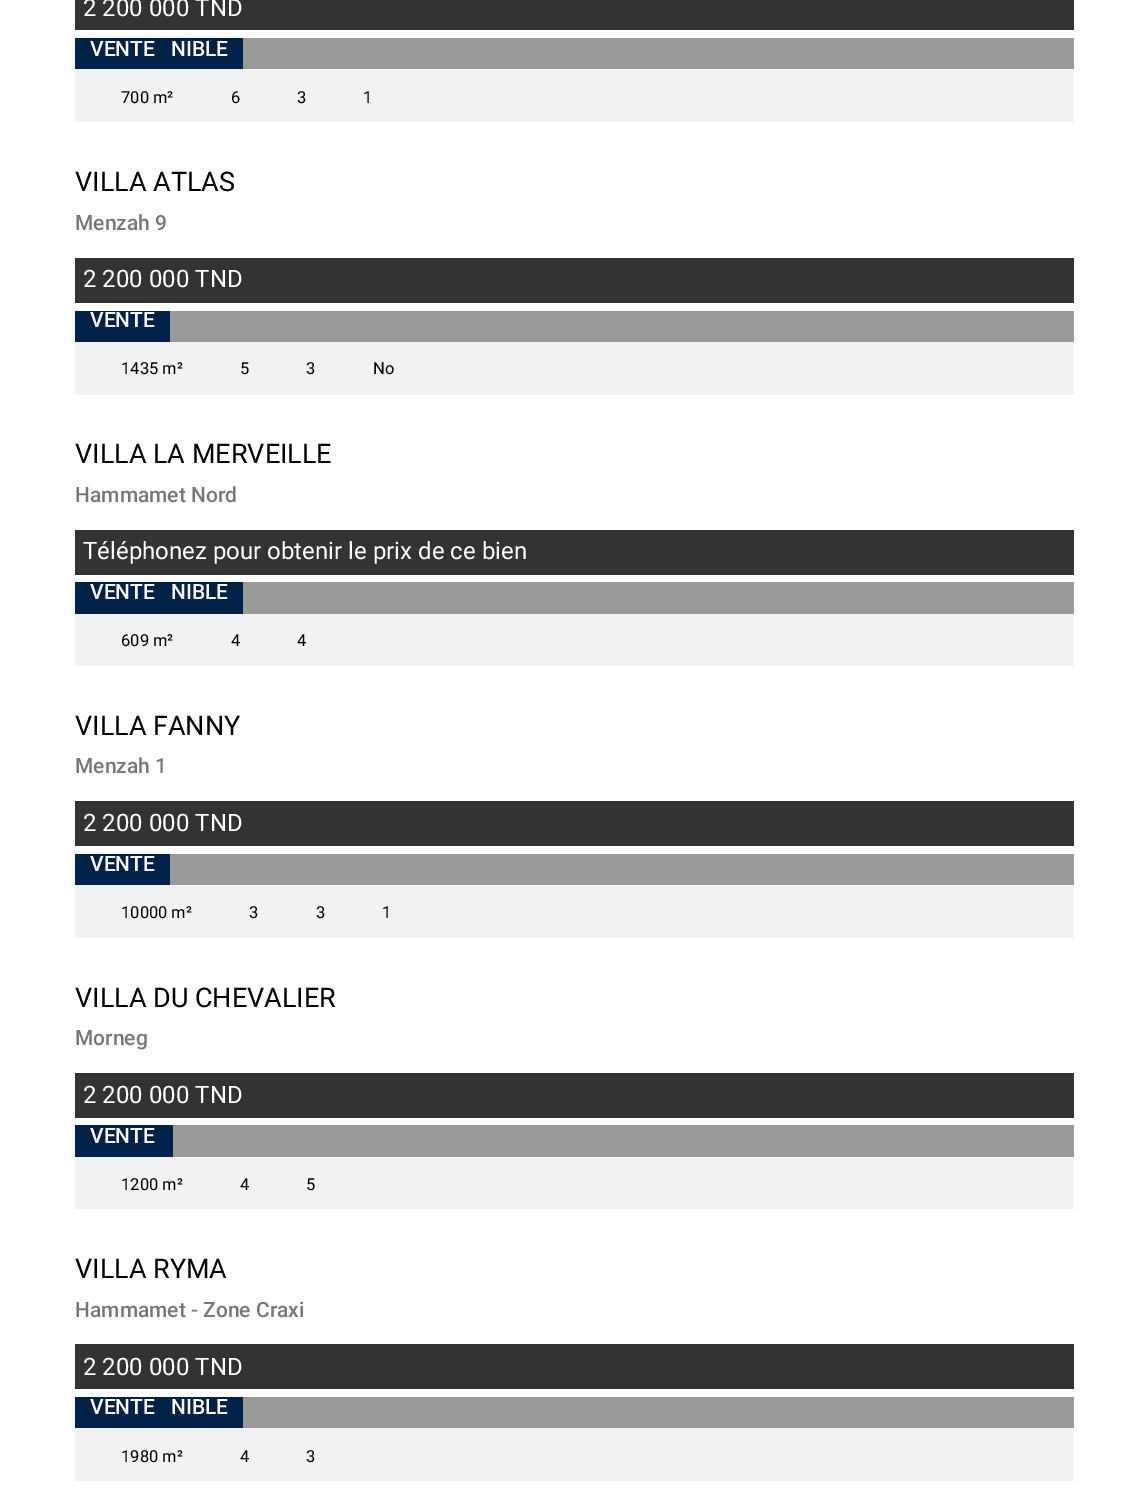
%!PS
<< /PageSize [1148 1496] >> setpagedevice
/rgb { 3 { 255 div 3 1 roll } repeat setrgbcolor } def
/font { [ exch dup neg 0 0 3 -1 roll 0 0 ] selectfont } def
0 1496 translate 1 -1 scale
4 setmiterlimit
255 255 255 rgb
0 0 1148 1496 rectfill
[
  [75 0 999 30 51 51 51]
  [243 38 831 31 153 153 153]
  [75 38 168 31 0 34 72]
  [75 69 999 53 242 242 242]
  [75 258 999 45 51 51 51]
  [170 311 904 31 153 153 153]
  [75 311 95 31 0 34 72]
  [75 342 999 53 242 242 242]
  [75 530 999 45 51 51 51]
  [243 582 831 32 153 153 153]
  [75 582 168 32 0 34 72]
  [75 614 999 52 242 242 242]
  [75 801 999 45 51 51 51]
  [170 854 904 31 153 153 153]
  [75 854 95 31 0 34 72]
  [75 885 999 53 242 242 242]
  [75 1073 999 45 51 51 51]
  [173 1125 901 32 153 153 153]
  [75 1125 98 32 0 34 72]
  [75 1157 999 52 242 242 242]
  [75 1344 999 45 51 51 51]
  [243 1397 831 31 153 153 153]
  [75 1397 168 31 0 34 72]
  [75 1428 999 53 242 242 242]
] { aload pop rgb rectfill } forall
/Roboto-Regular 24 font
255 255 255 rgb
83 16 moveto (2 200 000 TND) show
/Roboto-Medium 21 font
90 56 moveto (VENTE) show
171 56 moveto (NIBLE) show
/Roboto-Regular 16.5 font
0 0 0 rgb
[
  [(700 m²) 121 103]
  [(6) 231 103]
  [(3) 297 103]
  [(1) 363 103]
] { aload pop moveto show } forall
/Roboto-Regular 27 font
75 191 moveto (VILLA ATLAS) show
/Roboto-Medium 21 font
119 119 119 rgb
75 230 moveto (Menzah 9) show
/Roboto-Regular 24 font
255 255 255 rgb
83 287 moveto (2 200 000 TND) show
/Roboto-Medium 21 font
90 327 moveto (VENTE) show
/Roboto-Regular 16.5 font
0 0 0 rgb
[
  [(1435 m²) 121 374]
  [(5) 240 374]
  [(3) 306 374]
  [(No) 373 374]
] { aload pop moveto show } forall
/Roboto-Regular 27 font
75 463 moveto (VILLA LA MERVEILLE) show
/Roboto-Medium 21 font
119 119 119 rgb
75 502 moveto (Hammamet Nord) show
/Roboto-Regular 24 font
255 255 255 rgb
83 559 moveto (Téléphonez pour obtenir le prix de ce bien) show
/Roboto-Medium 21 font
90 599 moveto (VENTE) show
171 599 moveto (NIBLE) show
/Roboto-Regular 16.5 font
0 0 0 rgb
[
  [(609 m²) 121 646]
  [(4) 231 646]
  [(4) 297 646]
] { aload pop moveto show } forall
/Roboto-Regular 27 font
75 735 moveto (VILLA FANNY) show
/Roboto-Medium 21 font
119 119 119 rgb
75 773 moveto (Menzah 1) show
/Roboto-Regular 24 font
255 255 255 rgb
83 831 moveto (2 200 000 TND) show
/Roboto-Medium 21 font
90 871 moveto (VENTE) show
/Roboto-Regular 16.5 font
0 0 0 rgb
[
  [(10000 m²) 121 918]
  [(3) 249 918]
  [(3) 316 918]
  [(1) 382 918]
] { aload pop moveto show } forall
/Roboto-Regular 27 font
75 1007 moveto (VILLA DU CHEVALIER) show
/Roboto-Medium 21 font
119 119 119 rgb
75 1045 moveto (Morneg) show
/Roboto-Regular 24 font
255 255 255 rgb
83 1103 moveto (2 200 000 TND) show
/Roboto-Medium 21 font
90 1143 moveto (VENTE) show
/Roboto-Regular 16.5 font
0 0 0 rgb
[
  [(1200 m²) 121 1190]
  [(4) 240 1190]
  [(5) 306 1190]
] { aload pop moveto show } forall
/Roboto-Regular 27 font
75 1278 moveto (VILLA RYMA) show
/Roboto-Medium 21 font
119 119 119 rgb
75 1317 moveto (Hammamet - Zone Craxi) show
/Roboto-Regular 24 font
255 255 255 rgb
83 1375 moveto (2 200 000 TND) show
/Roboto-Medium 21 font
90 1414 moveto (VENTE) show
171 1414 moveto (NIBLE) show
/Roboto-Regular 16.5 font
0 0 0 rgb
[
  [(1980 m²) 121 1462]
  [(4) 240 1462]
  [(3) 306 1462]
] { aload pop moveto show } forall
showpage
